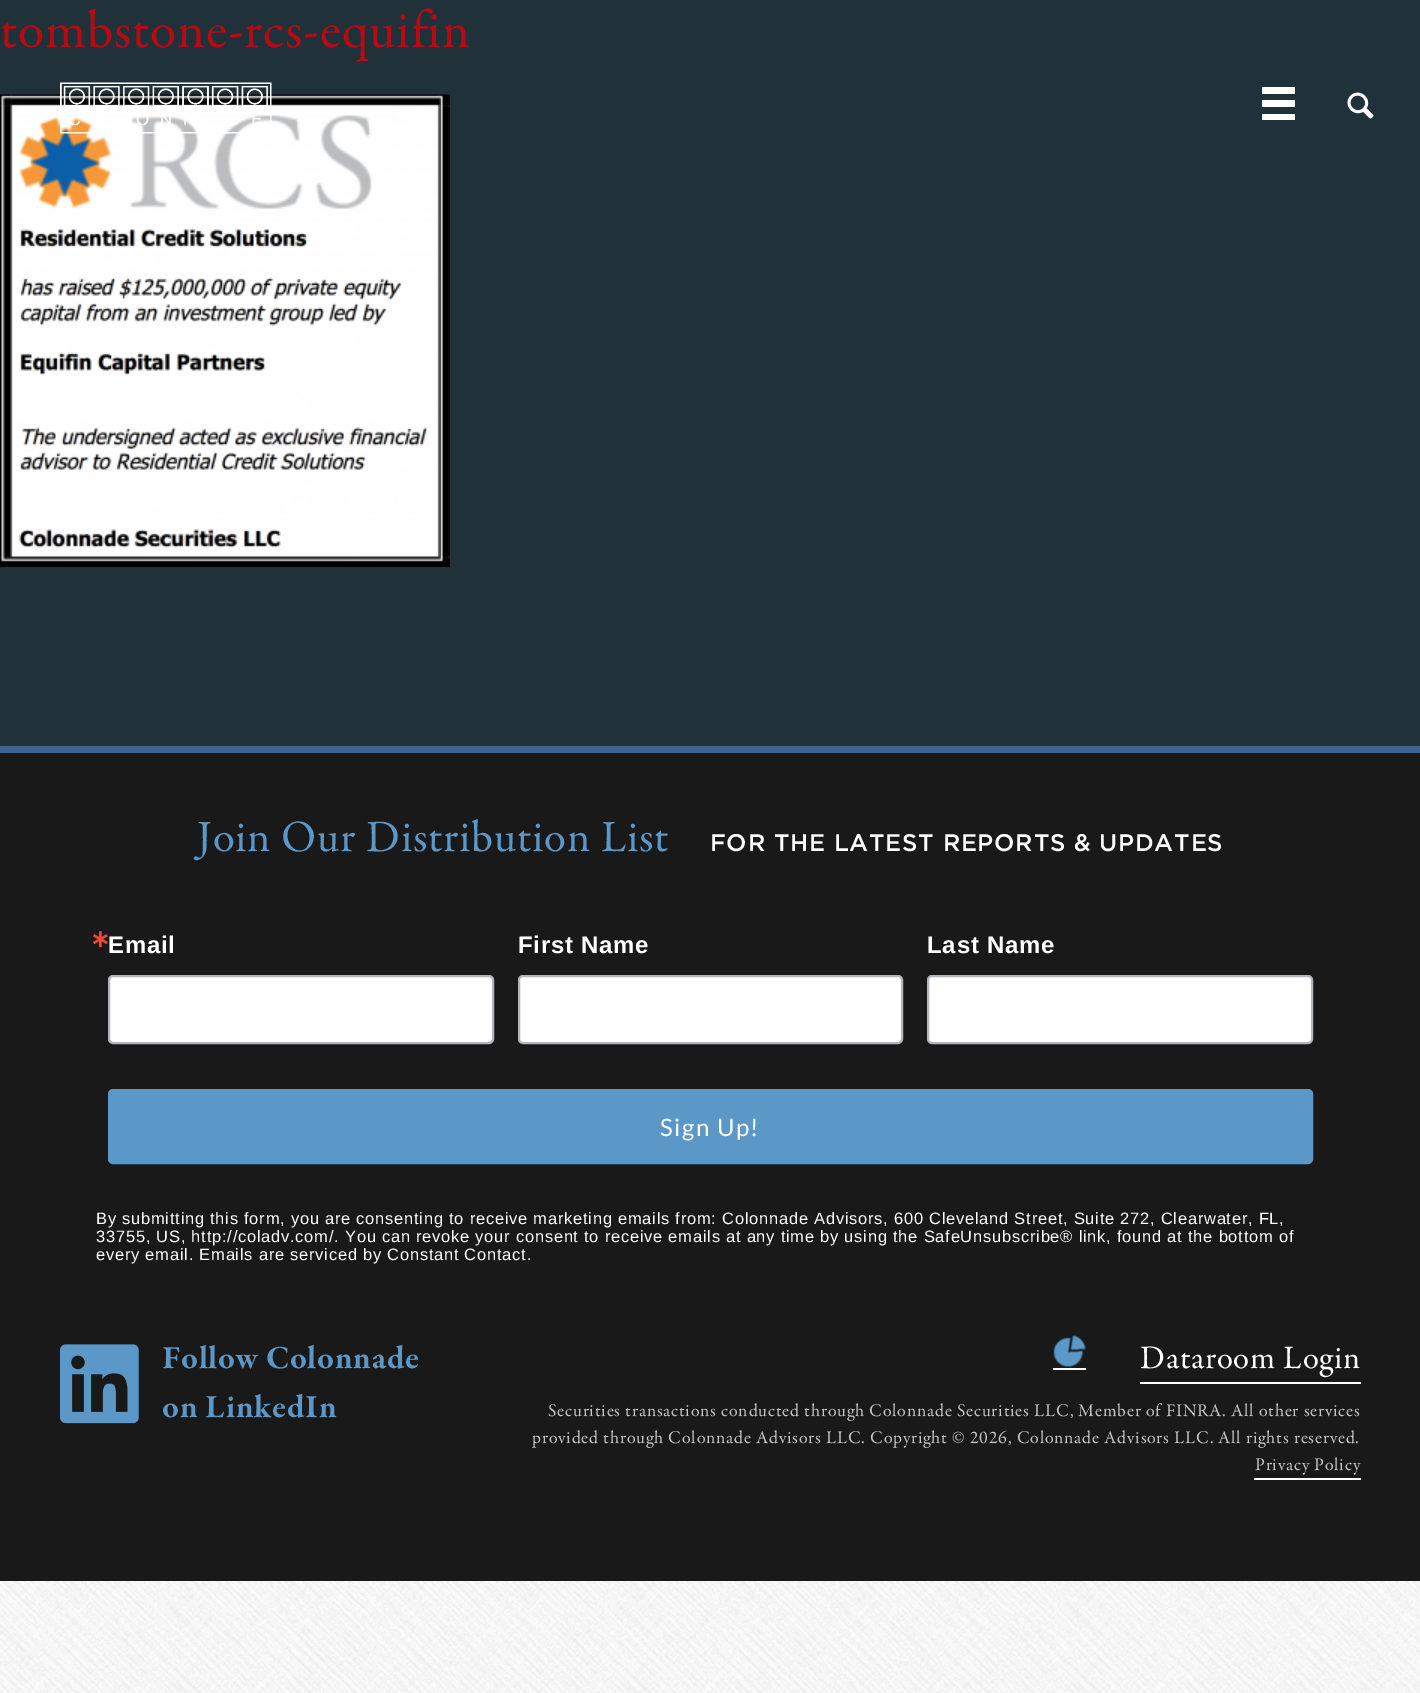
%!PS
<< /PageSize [1420 1693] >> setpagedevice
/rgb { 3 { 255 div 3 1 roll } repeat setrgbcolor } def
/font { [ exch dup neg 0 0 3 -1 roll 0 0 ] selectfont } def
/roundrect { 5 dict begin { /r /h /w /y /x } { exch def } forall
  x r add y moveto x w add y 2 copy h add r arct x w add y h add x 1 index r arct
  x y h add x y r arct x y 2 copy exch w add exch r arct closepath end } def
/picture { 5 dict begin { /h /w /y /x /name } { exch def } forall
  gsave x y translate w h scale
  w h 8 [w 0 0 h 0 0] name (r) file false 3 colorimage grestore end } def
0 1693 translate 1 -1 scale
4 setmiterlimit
255 255 255 rgb
0 0 1420 1693 rectfill
(img/1.rgb) 0 1581 1420 112 picture
33 49 57 rgb
0 0 1420 746 rectfill
(img/2.rgb) 0 94 450 473 picture
(img/3.rgb) 60 82 212 52 picture
[
  [1262 87 33 7 255 255 255]
  [1262 100 33 7 255 255 255]
  [1262 114 33 6 255 255 255]
] { aload pop rgb rectfill } forall
(img/4.rgb) 1347 92 27 27 picture
25 25 25 rgb
0 753 1420 828 rectfill
62 100 146 rgb
0 746 1420 7 rectfill
255 255 255 rgb
109 976 384 67 4 roundrect gsave fill grestore
176 182 187 rgb
2 setlinewidth
stroke
255 255 255 rgb
519 976 383 67 4 roundrect gsave fill grestore
176 182 187 rgb
stroke
255 255 255 rgb
928 976 384 67 4 roundrect gsave fill grestore
176 182 187 rgb
stroke
91 152 200 rgb
109 1090 1203 73 4 roundrect gsave fill grestore
stroke
(img/5.rgb) 60 1344 79 80 picture
255 255 255 rgb
1053 1368 33 2 rectfill
1140 1382 221 2 rectfill
(img/6.rgb) 1053 1335 33 33 picture
1254 1478 107 2 rectfill
/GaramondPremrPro-Regular 54 font
183 10 19 rgb
0 47 moveto 0.75 0 (tombstone-rcs-equifin) ashow
/GaramondPremrPro-Regular 45 font
91 152 200 rgb
197 851 moveto 0.75 0 (Join Our Distribution List) ashow
/Gotham-Medium 24 font
255 255 255 rgb
710 851 moveto 0.75 0 (FOR THE LATEST REPORTS & UPDATES) ashow
/DejaVuSans-Bold 24 font
245 70 59 rgb
90 947 moveto 0.75 0 (∗) ashow
/LiberationSans-Bold 24 font
255 255 255 rgb
108 953 moveto 0.75 0 (Email) ashow
518 953 moveto 0.75 0 (First Name) ashow
927 953 moveto 0.75 0 (Last Name) ashow
/Lato-Regular 24 font
660 1136 moveto 1.5 0 (Sign Up!) ashow
/LiberationSans-Regular 16.5 font
96 1224 moveto 0.75 0 (By submitting this form, you are consenting to receive marketing emails from: Colonnade Advisors, 600 Cleveland Street, Suite 272, Clearwater, FL,) ashow
96 1242 moveto 0.75 0 (33755, US, http://coladv.com/. You can revoke your consent to receive emails at any time by using the SafeUnsubscribe® link, found at the bottom of) ashow
96 1260 moveto 0.75 0 (every email. Emails are serviced by Constant Contact.) ashow
/GaramondPremrPro-Bold 33 font
91 152 200 rgb
162 1368 moveto 0.75 0 (Follow Colonnade) ashow
162 1417 moveto 0.75 0 (on LinkedIn) ashow
/GaramondPremrPro-Regular 33 font
255 255 255 rgb
1140 1368 moveto 0.75 0 (Dataroom Login) ashow
/GaramondPremrPro-Regular 18 font
198 198 198 rgb
548 1416 moveto 0.75 0 (Securities transactions conducted through Colonnade Securities LLC, Member of FINRA. All other services) ashow
532 1443 moveto 0.75 0 (provided through Colonnade Advisors LLC. Copyright © 2026, Colonnade Advisors LLC. All rights reserved.) ashow
1255 1470 moveto 0.75 0 (Privacy Policy) ashow
showpage
